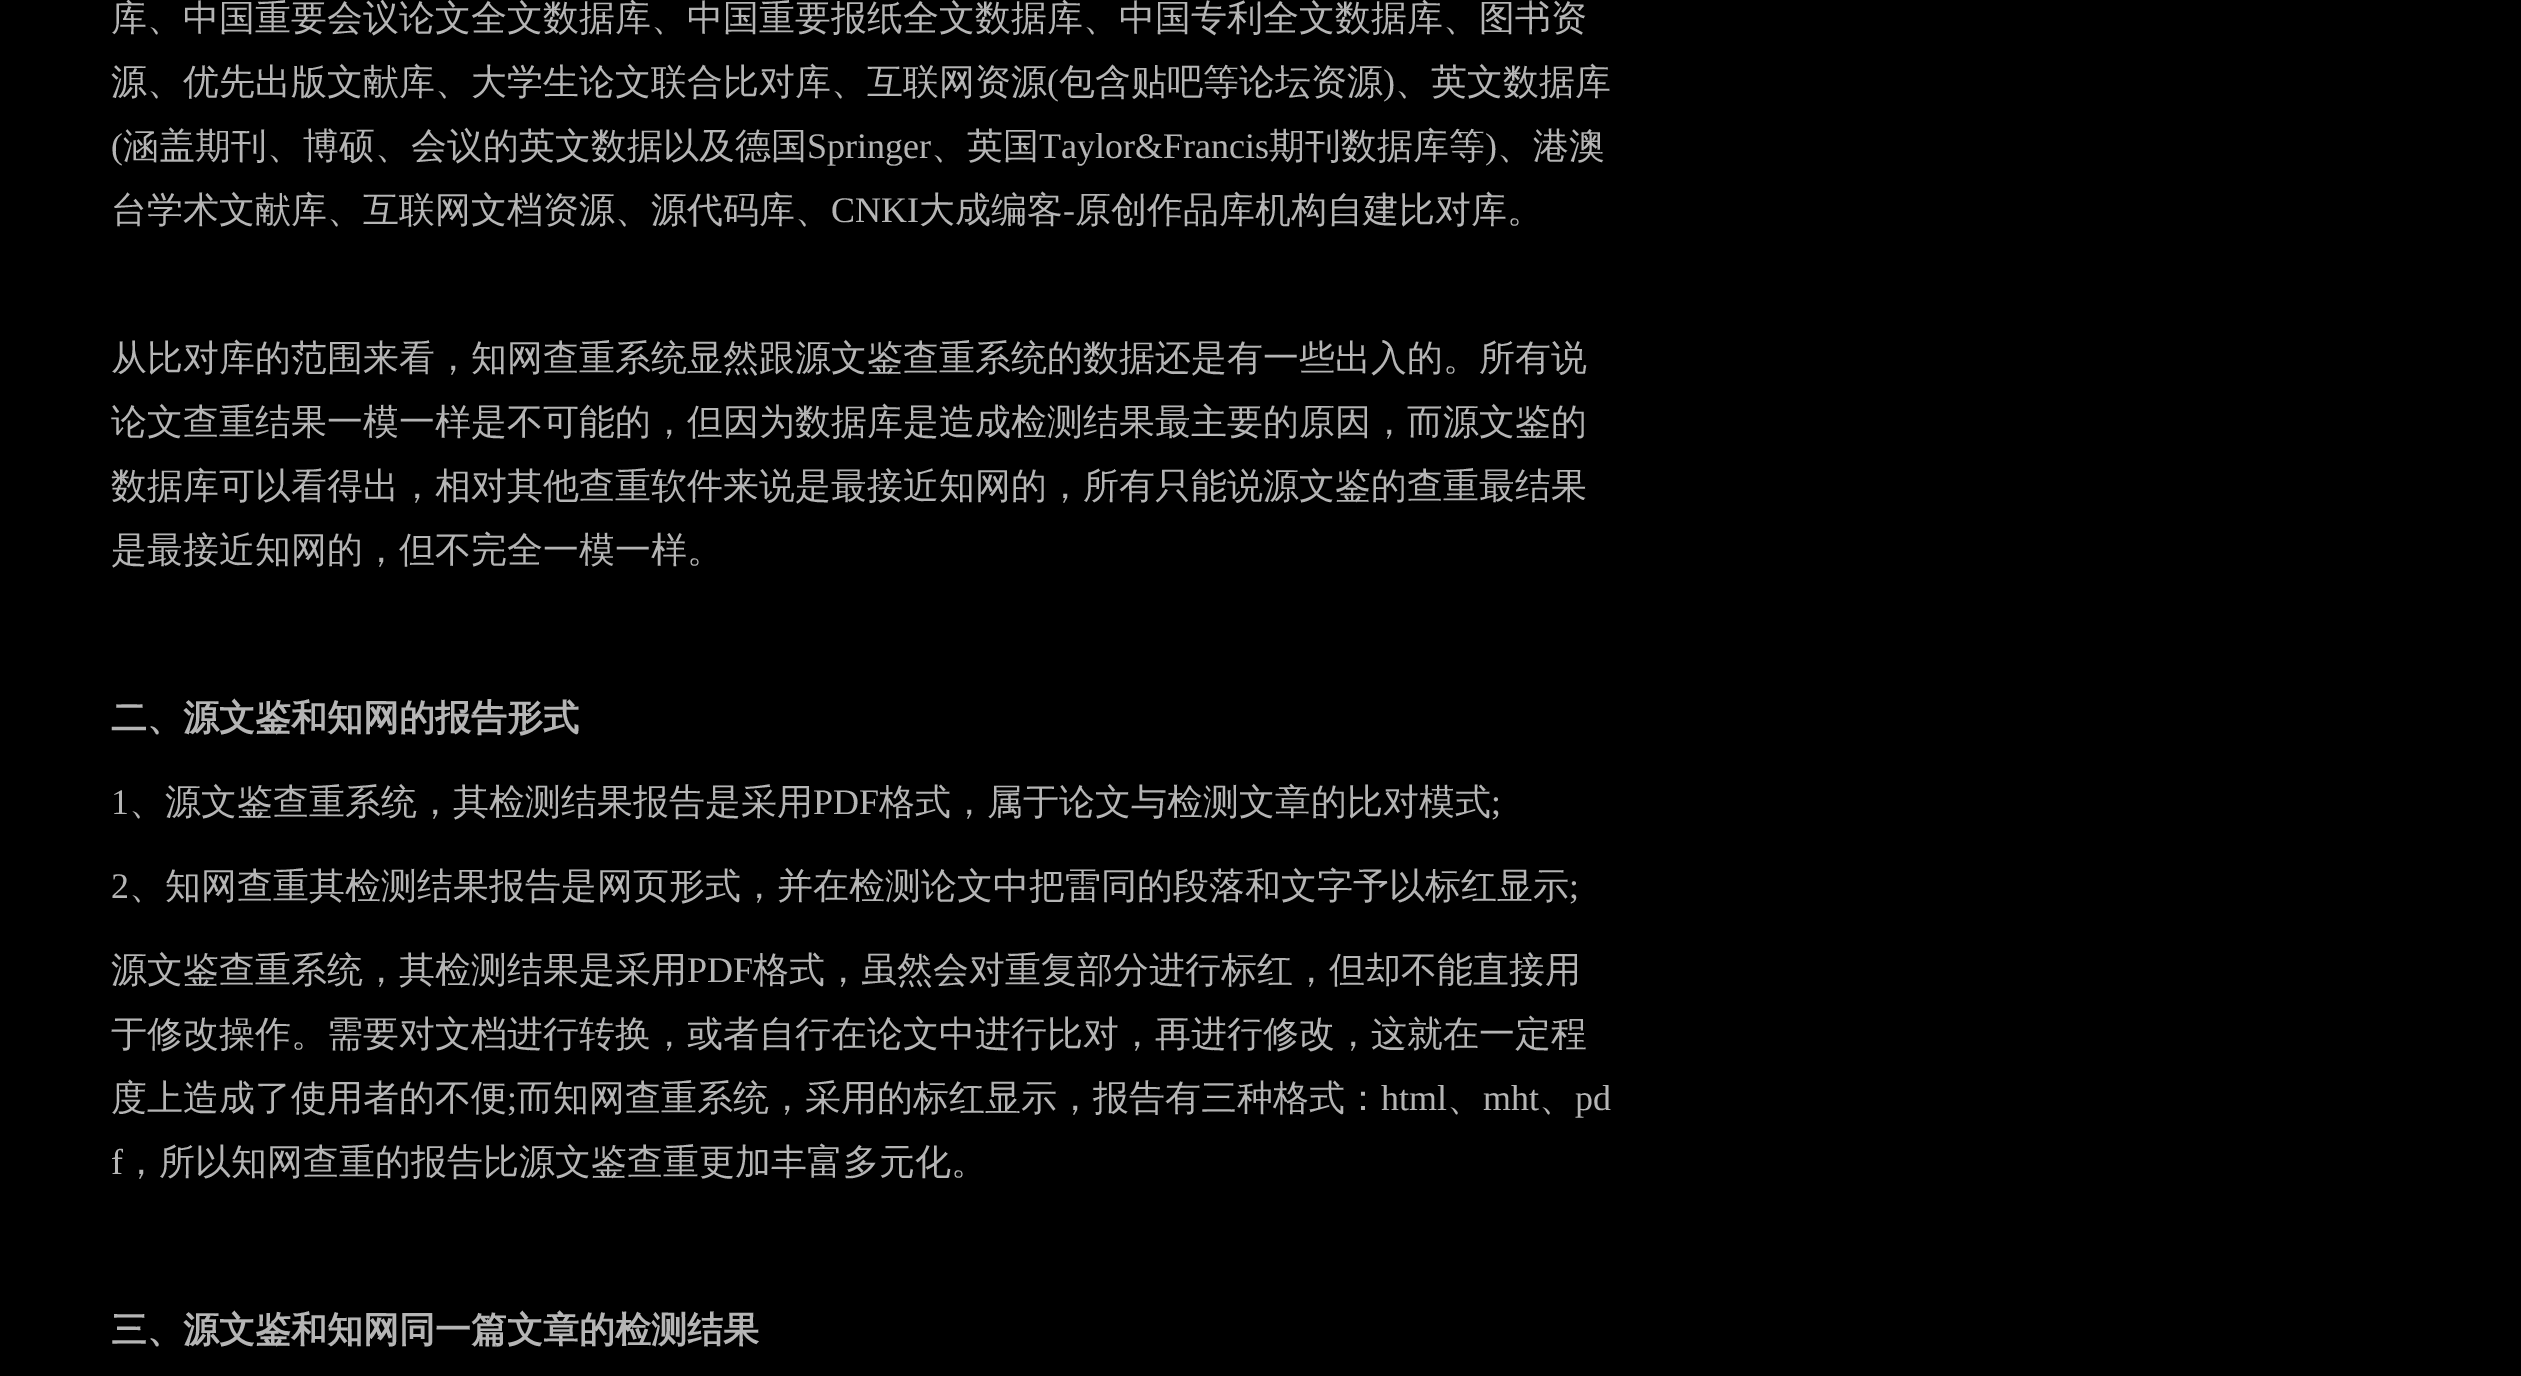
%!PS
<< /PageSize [2521 1376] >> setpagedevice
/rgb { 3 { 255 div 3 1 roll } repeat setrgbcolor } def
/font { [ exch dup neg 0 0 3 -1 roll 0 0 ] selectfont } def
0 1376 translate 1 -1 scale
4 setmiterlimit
0 0 0 rgb
0 0 2521 1376 rectfill
/WenQuanYiZenHei-Medium 36 font
181 181 181 rgb
111 30 moveto (库、中国重要会议论文全文数据库、中国重要报纸全文数据库、中国专利全文数据库、图书资) show
111 94 moveto (源、优先出版文献库、大学生论文联合比对库、互联网资源) show
/LiberationSerif-Regular 36 font
1047 94 moveto (\() show
/WenQuanYiZenHei-Medium 36 font
1059 94 moveto (包含贴吧等论坛资源) show
/LiberationSerif-Regular 36 font
1383 94 moveto (\)) show
/WenQuanYiZenHei-Medium 36 font
1395 94 moveto (、英文数据库) show
/LiberationSerif-Regular 36 font
111 158 moveto (\() show
/WenQuanYiZenHei-Medium 36 font
123 158 moveto (涵盖期刊、博硕、会议的英文数据以及德国) show
/LiberationSerif-Regular 36 font
807 158 moveto (Springer) show
/WenQuanYiZenHei-Medium 36 font
931 158 moveto (、英国) show
/LiberationSerif-Regular 36 font
1039 158 moveto (Taylor&Francis) show
/WenQuanYiZenHei-Medium 36 font
1269 158 moveto (期刊数据库等) show
/LiberationSerif-Regular 36 font
1485 158 moveto (\)) show
/WenQuanYiZenHei-Medium 36 font
1497 158 moveto (、港澳) show
111 222 moveto (台学术文献库、互联网文档资源、源代码库、) show
/LiberationSerif-Regular 36 font
831 222 moveto (CNKI) show
/WenQuanYiZenHei-Medium 36 font
919 222 moveto (大成编客) show
/LiberationSerif-Regular 36 font
1063 222 moveto (-) show
/WenQuanYiZenHei-Medium 36 font
[
  [(原创作品库机构自建比对库。) 1075 222]
  [(从比对库的范围来看，知网查重系统显然跟源文鉴查重系统的数据还是有一些出入的。所有说) 111 370]
  [(论文查重结果一模一样是不可能的，但因为数据库是造成检测结果最主要的原因，而源文鉴的) 111 434]
  [(数据库可以看得出，相对其他查重软件来说是最接近知网的，所有只能说源文鉴的查重最结果) 111 498]
  [(是最接近知网的，但不完全一模一样。) 111 562]
] { aload pop moveto show } forall
/WenQuanYiZenHei-Bold 36 font
111 730 moveto (二、源文鉴和知网的报告形式) show
/LiberationSerif-Regular 36 font
111 814 moveto (1) show
/WenQuanYiZenHei-Medium 36 font
129 814 moveto (、源文鉴查重系统，其检测结果报告是采用) show
/LiberationSerif-Regular 36 font
813 814 moveto (PDF) show
/WenQuanYiZenHei-Medium 36 font
879 814 moveto (格式，属于论文与检测文章的比对模式) show
/LiberationSerif-Regular 36 font
1491 814 moveto (;) show
111 898 moveto (2) show
/WenQuanYiZenHei-Medium 36 font
129 898 moveto (、知网查重其检测结果报告是网页形式，并在检测论文中把雷同的段落和文字予以标红显示) show
/LiberationSerif-Regular 36 font
1569 898 moveto (;) show
/WenQuanYiZenHei-Medium 36 font
111 982 moveto (源文鉴查重系统，其检测结果是采用) show
/LiberationSerif-Regular 36 font
687 982 moveto (PDF) show
/WenQuanYiZenHei-Medium 36 font
[
  [(格式，虽然会对重复部分进行标红，但却不能直接用) 753 982]
  [(于修改操作。需要对文档进行转换，或者自行在论文中进行比对，再进行修改，这就在一定程) 111 1046]
  [(度上造成了使用者的不便) 111 1110]
] { aload pop moveto show } forall
/LiberationSerif-Regular 36 font
507 1110 moveto (;) show
/WenQuanYiZenHei-Medium 36 font
517 1110 moveto (而知网查重系统，采用的标红显示，报告有三种格式：) show
/LiberationSerif-Regular 36 font
1381 1110 moveto (html) show
/WenQuanYiZenHei-Medium 36 font
1447 1110 moveto (、) show
/LiberationSerif-Regular 36 font
1483 1110 moveto (mht) show
/WenQuanYiZenHei-Medium 36 font
1539 1110 moveto (、) show
/LiberationSerif-Regular 36 font
1575 1110 moveto (pd) show
111 1174 moveto (f) show
/WenQuanYiZenHei-Medium 36 font
123 1174 moveto (，所以知网查重的报告比源文鉴查重更加丰富多元化。) show
/WenQuanYiZenHei-Bold 36 font
111 1342 moveto (三、源文鉴和知网同一篇文章的检测结果) show
showpage
